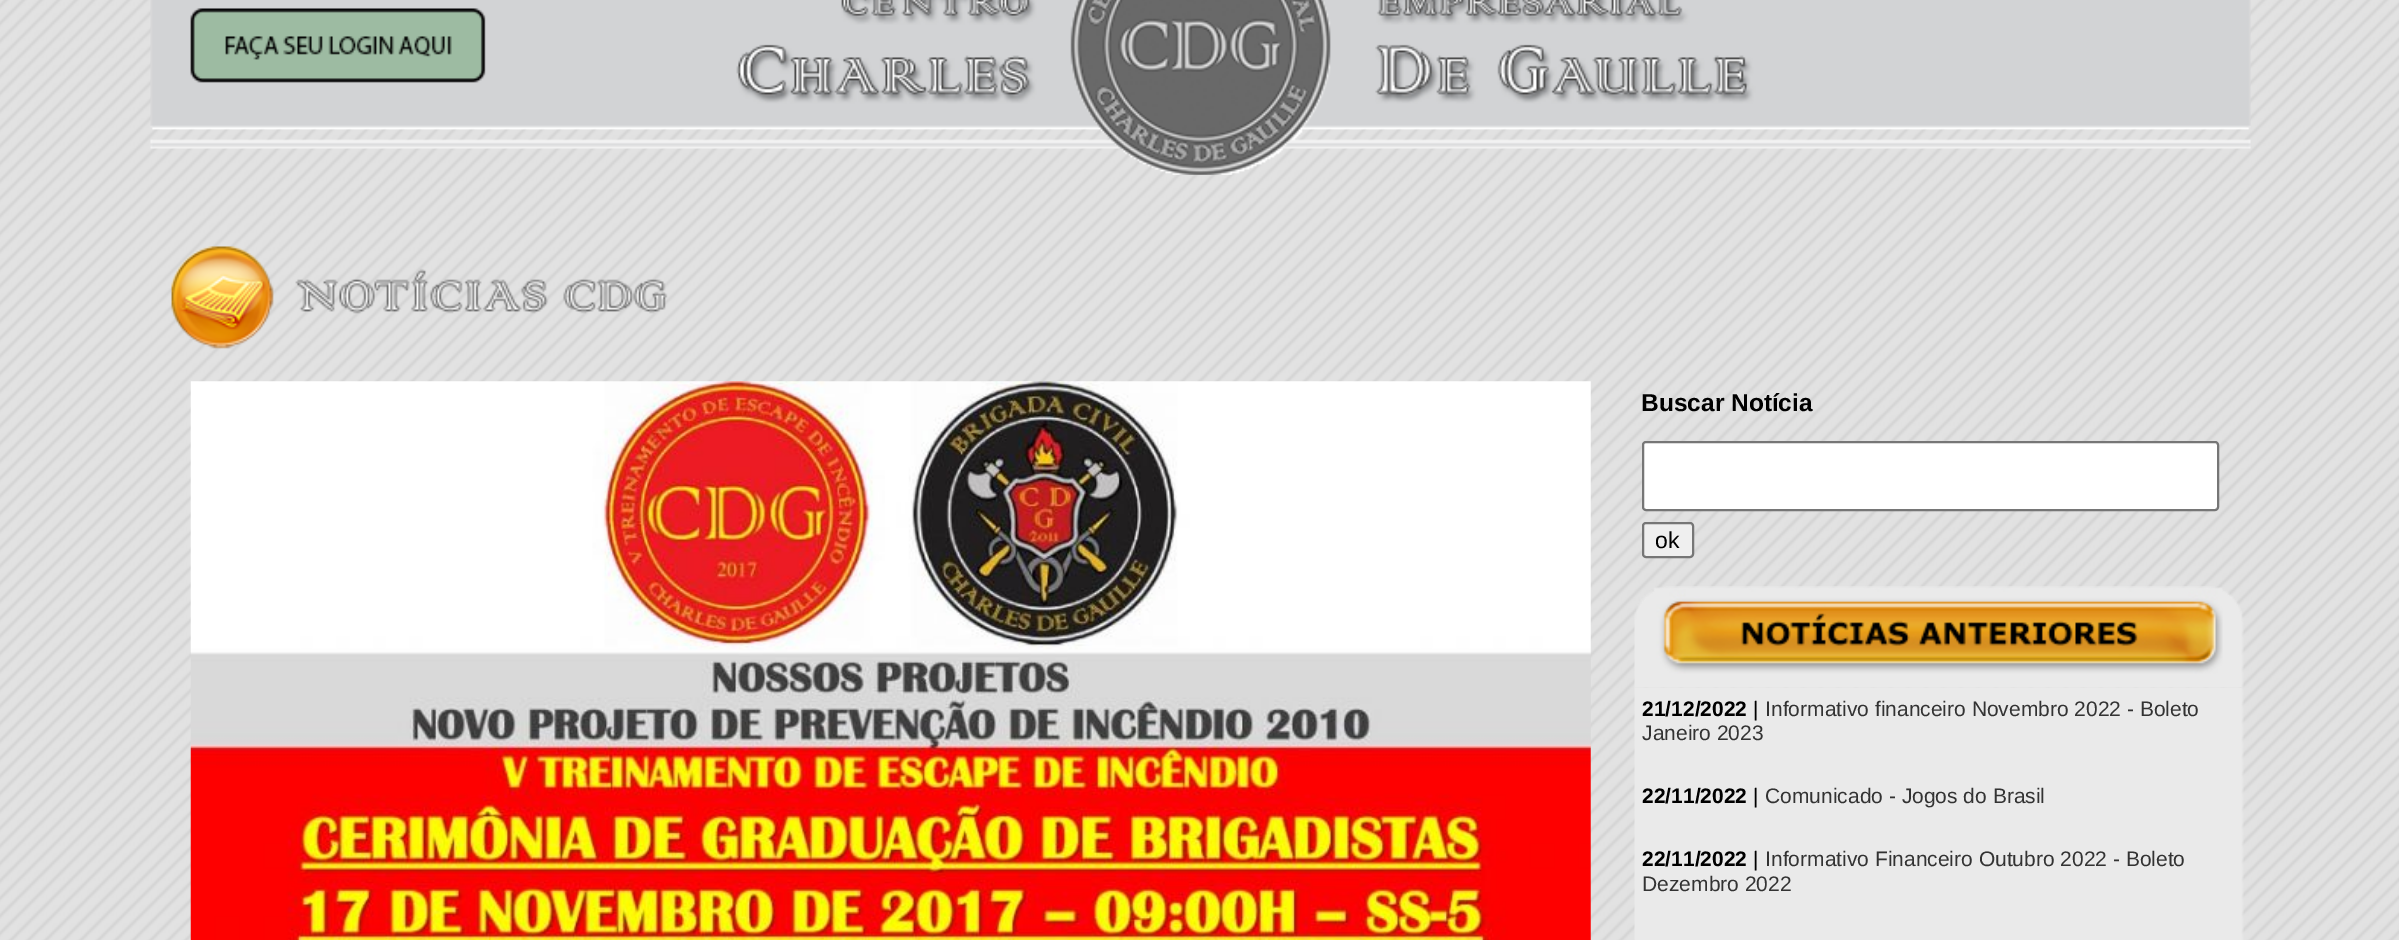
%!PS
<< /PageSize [2399 940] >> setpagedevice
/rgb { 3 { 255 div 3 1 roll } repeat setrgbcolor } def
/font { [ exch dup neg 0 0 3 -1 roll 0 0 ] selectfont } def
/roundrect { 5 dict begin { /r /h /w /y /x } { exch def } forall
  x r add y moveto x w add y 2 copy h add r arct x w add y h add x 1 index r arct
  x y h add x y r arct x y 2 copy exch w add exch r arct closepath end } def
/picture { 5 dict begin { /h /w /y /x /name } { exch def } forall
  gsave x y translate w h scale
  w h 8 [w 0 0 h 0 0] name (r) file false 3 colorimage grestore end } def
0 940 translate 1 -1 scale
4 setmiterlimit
255 255 255 rgb
0 0 2399 940 rectfill
(img/1.rgb) 0 0 2399 940 picture
(img/2.rgb) 150 0 2101 175 picture
(img/3.rgb) 190 8 296 75 picture
(img/4.rgb) 171 246 497 103 picture
(img/5.rgb) 190 381 1401 559 picture
1643 442 575 68 3 roundrect gsave fill grestore
118 118 118 rgb
2 setlinewidth
stroke
239 239 239 rgb
1643 523 50 34 3 roundrect gsave fill grestore
118 118 118 rgb
stroke
(img/7.rgb) 1634 687 610 253 picture
(img/6.rgb) 1634 586 610 102 picture
/LiberationSans-Bold 24.5 font
0 0 0 rgb
1641 411 moveto (Buscar Notícia) show
/LiberationSans-Regular 23 font
1655 548 moveto (ok) show
/LiberationSans-Bold 21 font
1642 716 moveto (21/12/2022) show
/LiberationSans-Regular 21 font
1753 716 moveto (|) show
51 51 51 rgb
1765 716 moveto (Informativo financeiro Novembro 2022 - Boleto) show
1642 740 moveto (Janeiro 2023) show
/LiberationSans-Bold 21 font
0 0 0 rgb
1642 803 moveto (22/11/2022) show
/LiberationSans-Regular 21 font
1753 803 moveto (|) show
51 51 51 rgb
1765 803 moveto (Comunicado - Jogos do Brasil) show
/LiberationSans-Bold 21 font
0 0 0 rgb
1642 866 moveto (22/11/2022) show
/LiberationSans-Regular 21 font
1753 866 moveto (|) show
51 51 51 rgb
1765 866 moveto (Informativo Financeiro Outubro 2022 - Boleto) show
1642 891 moveto (Dezembro 2022) show
showpage
